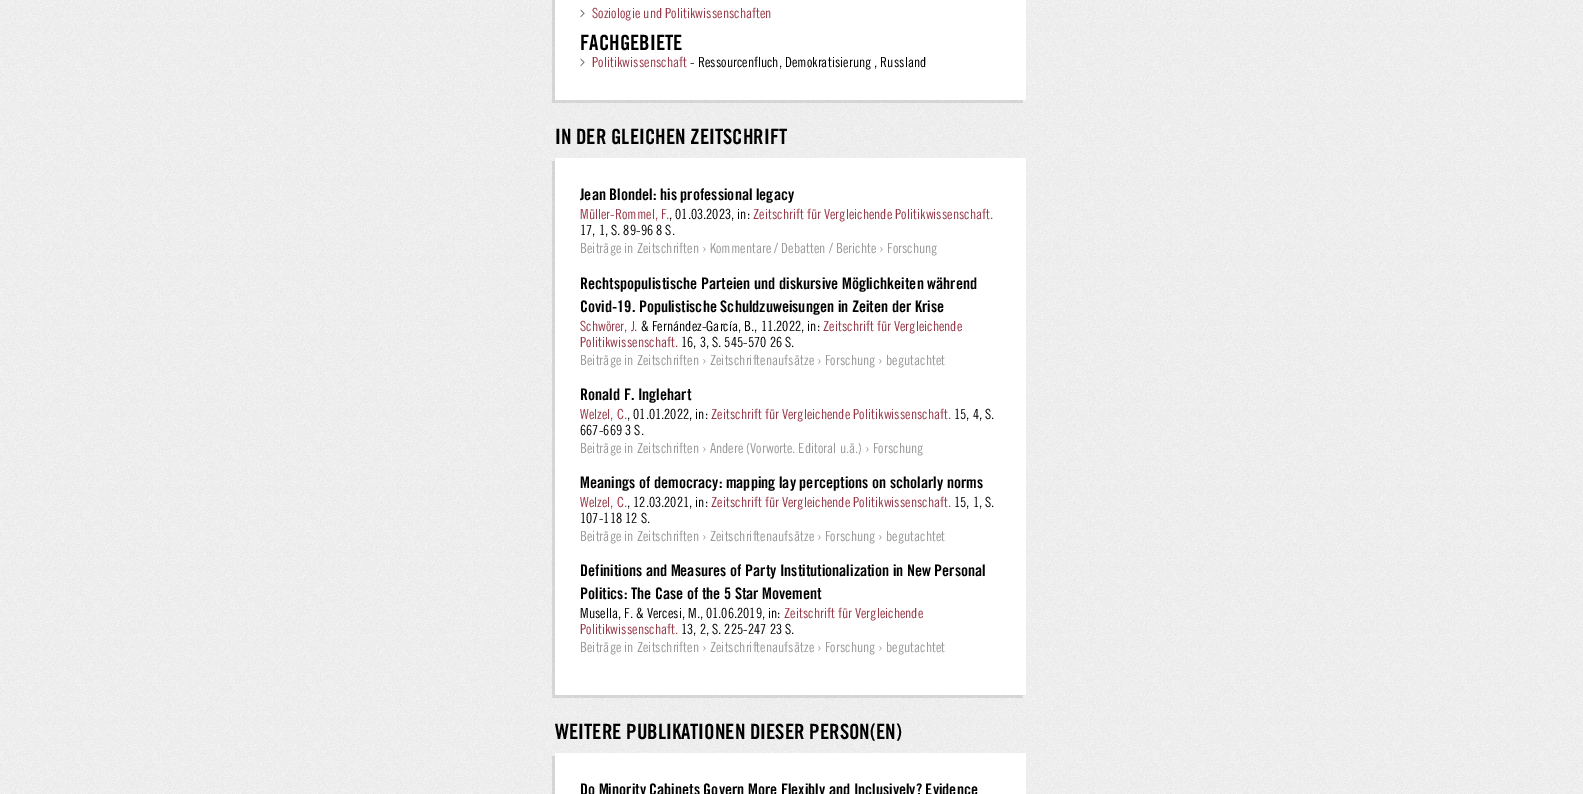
%!PS
<< /PageSize [1583 794] /PageUsesTransparency true >> setpagedevice
/rgb { 3 { 255 div 3 1 roll } repeat setrgbcolor } def
/font { [ exch dup neg 0 0 3 -1 roll 0 0 ] selectfont } def
/alpha { dup .setfillconstantalpha .setstrokeconstantalpha } def
/picture { 5 dict begin { /h /w /y /x /name } { exch def } forall
  gsave x y translate w h scale
  w h 8 [w 0 0 h 0 0] name (r) file false 3 colorimage grestore end } def
0 .pushpdf14devicefilter
0 794 translate 1 -1 scale
4 setmiterlimit
255 255 255 rgb
0 0 1583 794 rectfill
(img/1.rgb) 0 0 1583 794 picture
0.1 alpha
0 0 0 rgb
552 -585 moveto 552 103 lineto 1023 103 lineto 1023 100 lineto 555 100 lineto 555 -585 lineto closepath fill
1 alpha
255 255 255 rgb
555 0 471 100 rectfill
(img/2.rgb) 580 9 5 9 picture
(img/2.rgb) 580 58 5 9 picture
0.1 alpha
0 0 0 rgb
552 161 moveto 552 698 lineto 1023 698 lineto 1023 695 lineto 555 695 lineto 555 161 lineto closepath fill
1 alpha
255 255 255 rgb
555 158 471 537 rectfill
0.1 alpha
0 0 0 rgb
552 756 moveto 552 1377 lineto 1023 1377 lineto 1023 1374 lineto 555 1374 lineto 555 756 lineto closepath fill
1 alpha
255 255 255 rgb
555 753 471 41 rectfill
/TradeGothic-Regular 14 font
151 57 72 rgb
592 18 moveto (Soziologie und Politikwissenschaften) show
/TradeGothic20-Bold 21 font
0 0 0 rgb
580 50 moveto (FACHGEBIETE) show
/TradeGothic-Regular 14 font
151 57 72 rgb
592 67 moveto (Politikwissenschaft) show
0 0 0 rgb
690 67 moveto (- Ressourcenfluch, Demokratisierung , Russland) show
/TradeGothic20-Bold 21 font
555 144 moveto (IN DER GLEICHEN ZEITSCHRIFT) show
/TradeGothic20-Bold 16 font
580 200 moveto (Jean Blondel: his professional legacy) show
/TradeGothic-Regular 14 font
151 57 72 rgb
580 219 moveto (Müller-Rommel, F.) show
0 0 0 rgb
669 219 moveto (, 01.03.2023, in:) show
151 57 72 rgb
753 219 moveto (Zeitschrift für Vergleichende Politikwissenschaft.) show
0 0 0 rgb
580 235 moveto (17, 1, S. 89-96 8 S.) show
153 153 153 rgb
580 253 moveto (Beiträge in Zeitschriften › Kommentare / Debatten / Berichte › Forschung) show
/TradeGothic20-Bold 16 font
0 0 0 rgb
580 289 moveto (Rechtspopulistische Parteien und diskursive Möglichkeiten während) show
580 312 moveto (Covid-19. Populistische Schuldzuweisungen in Zeiten der Krise) show
/TradeGothic-Regular 14 font
151 57 72 rgb
580 331 moveto (Schwörer, J.) show
0 0 0 rgb
641 331 moveto (& Fernández-García, B., 11.2022, in:) show
151 57 72 rgb
823 331 moveto (Zeitschrift für Vergleichende) show
580 347 moveto (Politikwissenschaft.) show
0 0 0 rgb
681 347 moveto (16, 3, S. 545-570 26 S.) show
153 153 153 rgb
580 365 moveto (Beiträge in Zeitschriften › Zeitschriftenaufsätze › Forschung › begutachtet) show
/TradeGothic20-Bold 16 font
0 0 0 rgb
580 400 moveto (Ronald F. Inglehart) show
/TradeGothic-Regular 14 font
151 57 72 rgb
580 419 moveto (Welzel, C.) show
0 0 0 rgb
627 419 moveto (, 01.01.2022, in:) show
151 57 72 rgb
711 419 moveto (Zeitschrift für Vergleichende Politikwissenschaft.) show
0 0 0 rgb
954 419 moveto (15, 4, S.) show
580 435 moveto (667-669 3 S.) show
153 153 153 rgb
580 453 moveto (Beiträge in Zeitschriften › Andere \(Vorworte. Editoral u.ä.\) › Forschung) show
/TradeGothic20-Bold 16 font
0 0 0 rgb
580 488 moveto (Meanings of democracy: mapping lay perceptions on scholarly norms) show
/TradeGothic-Regular 14 font
151 57 72 rgb
580 507 moveto (Welzel, C.) show
0 0 0 rgb
627 507 moveto (, 12.03.2021, in:) show
151 57 72 rgb
711 507 moveto (Zeitschrift für Vergleichende Politikwissenschaft.) show
0 0 0 rgb
954 507 moveto (15, 1, S.) show
580 523 moveto (107-118 12 S.) show
153 153 153 rgb
580 541 moveto (Beiträge in Zeitschriften › Zeitschriftenaufsätze › Forschung › begutachtet) show
/TradeGothic20-Bold 16 font
0 0 0 rgb
580 576 moveto (Definitions and Measures of Party Institutionalization in New Personal) show
580 599 moveto (Politics: The Case of the 5 Star Movement) show
/TradeGothic-Regular 14 font
580 618 moveto (Musella, F. & Vercesi, M., 01.06.2019, in:) show
151 57 72 rgb
784 618 moveto (Zeitschrift für Vergleichende) show
580 634 moveto (Politikwissenschaft.) show
0 0 0 rgb
681 634 moveto (13, 2, S. 225-247 23 S.) show
153 153 153 rgb
580 652 moveto (Beiträge in Zeitschriften › Zeitschriftenaufsätze › Forschung › begutachtet) show
/TradeGothic20-Bold 21 font
0 0 0 rgb
555 739 moveto (WEITERE PUBLIKATIONEN DIESER PERSON\(EN\)) show
/TradeGothic20-Bold 16 font
580 795 moveto (Do Minority Cabinets Govern More Flexibly and Inclusively? Evidence) show
.poppdf14devicefilter showpage
